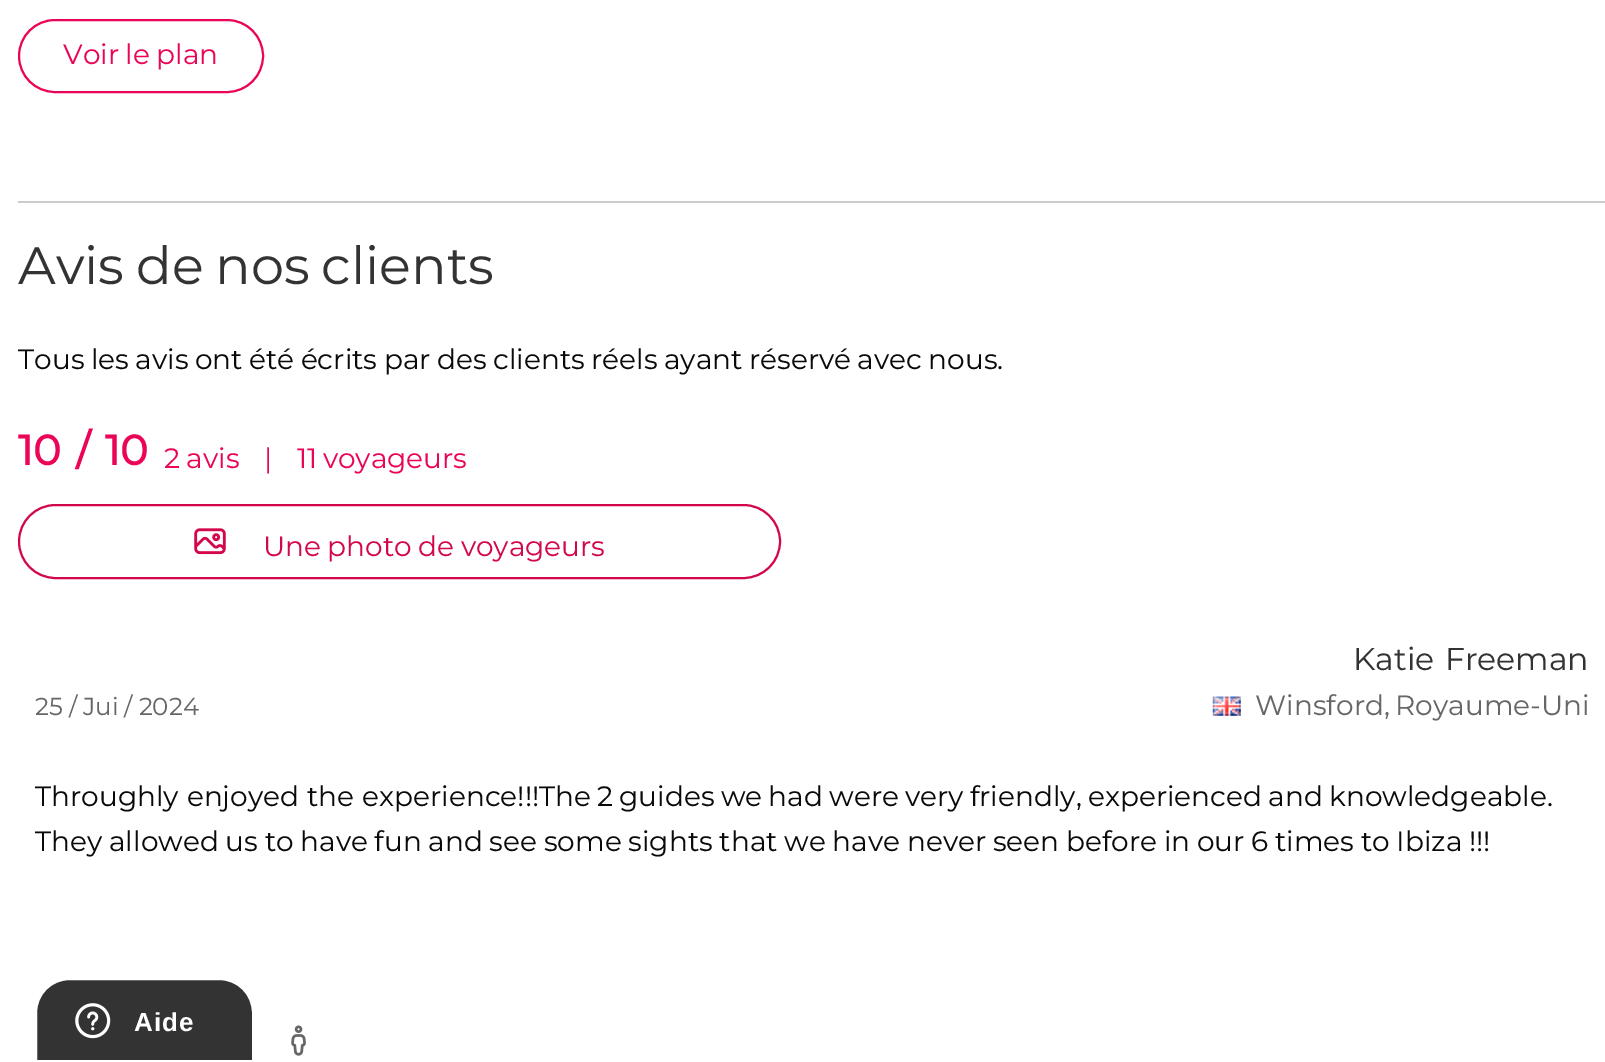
%!PS
<< /PageSize [1605 1062] >> setpagedevice
/rgb { 3 { 255 div 3 1 roll } repeat setrgbcolor } def
/font { [ exch dup neg 0 0 3 -1 roll 0 0 ] selectfont } def
/roundrect { 5 dict begin { /r /h /w /y /x } { exch def } forall
  x r add y moveto x w add y 2 copy h add r arct x w add y h add x 1 index r arct
  x y h add x y r arct x y 2 copy exch w add exch r arct closepath end } def
/picture { 5 dict begin { /h /w /y /x /name } { exch def } forall
  gsave x y translate w h scale
  w h 8 [w 0 0 h 0 0] name (r) file false 3 colorimage grestore end } def
0 1062 translate 1 -1 scale
4 setmiterlimit
255 255 255 rgb
0 0 1605 1062 rectfill
234 5 88 rgb
2 setlinewidth
19 20 244 72 36 roundrect stroke
204 204 204 rgb
18 201 1587 2 rectfill
211 7 76 rgb
19 505 761 73 36.5 roundrect stroke
(img/1.rgb) 194 528 32 27 picture
(img/2.rgb) 1212 696 29 20 picture
(img/3.rgb) 291 1025 15 31 picture
51 51 51 rgb
70 979 moveto 219 979 lineto 238 979 253 994 253 1013 curveto 253 1061 lineto 36 1061 lineto 36 1013 lineto 36 994 51 979 70 979 curveto closepath gsave fill grestore
255 255 255 rgb
stroke
(img/4.rgb) 75 1003 36 36 picture
/Montserrat-Regular 28 font
234 5 88 rgb
63 64 moveto -1 0 32 (Voir le plan) widthshow
/Montserrat-Regular 52.5 font
51 51 51 rgb
18 284 moveto -2 0 32 (Avis de nos clients) widthshow
/Montserrat-Regular 28 font
10 10 10 rgb
18 369 moveto -1 0 32 (Tous les avis ont été écrits par des clients réels ayant réservé avec nous.) widthshow
/Montserrat-Bold 42 font
234 5 88 rgb
18 465 moveto 4 0 32 (10 / 10) widthshow
/Montserrat-Regular 28 font
164 468 moveto -1 0 32 (2 avis) widthshow
264 468 moveto (|) show
297 468 moveto -2 0 32 (11 voyageurs) widthshow
211 7 76 rgb
263 556 moveto -1 0 32 (Une photo de voyageurs) widthshow
/Montserrat-Regular 31.5 font
51 51 51 rgb
1353 670 moveto 2 0 32 (Katie Freeman) widthshow
/Montserrat-Regular 28 font
102 102 102 rgb
1255 715 moveto -2 0 32 (Winsford, Royaume-Uni) widthshow
10 10 10 rgb
35 806 moveto 0.5 0 32 (Throughly enjoyed the experience!!!) widthshow
539 806 moveto -1.25 0 32 (The 2 guides we had were very friendly, experienced and knowledgeable.) widthshow
35 851 moveto -0.75 0 32 (They allowed us to have fun and see some sights that we have never seen before in our 6 times to Ibiza !!!) widthshow
/Montserrat-Regular 24.5 font
102 102 102 rgb
35 715 moveto -0.5 0 32 (25 / Jui / 2024) widthshow
/LiberationSans-Bold 26 font
255 255 255 rgb
134 1031 moveto 1 0 (Aide) ashow
showpage
